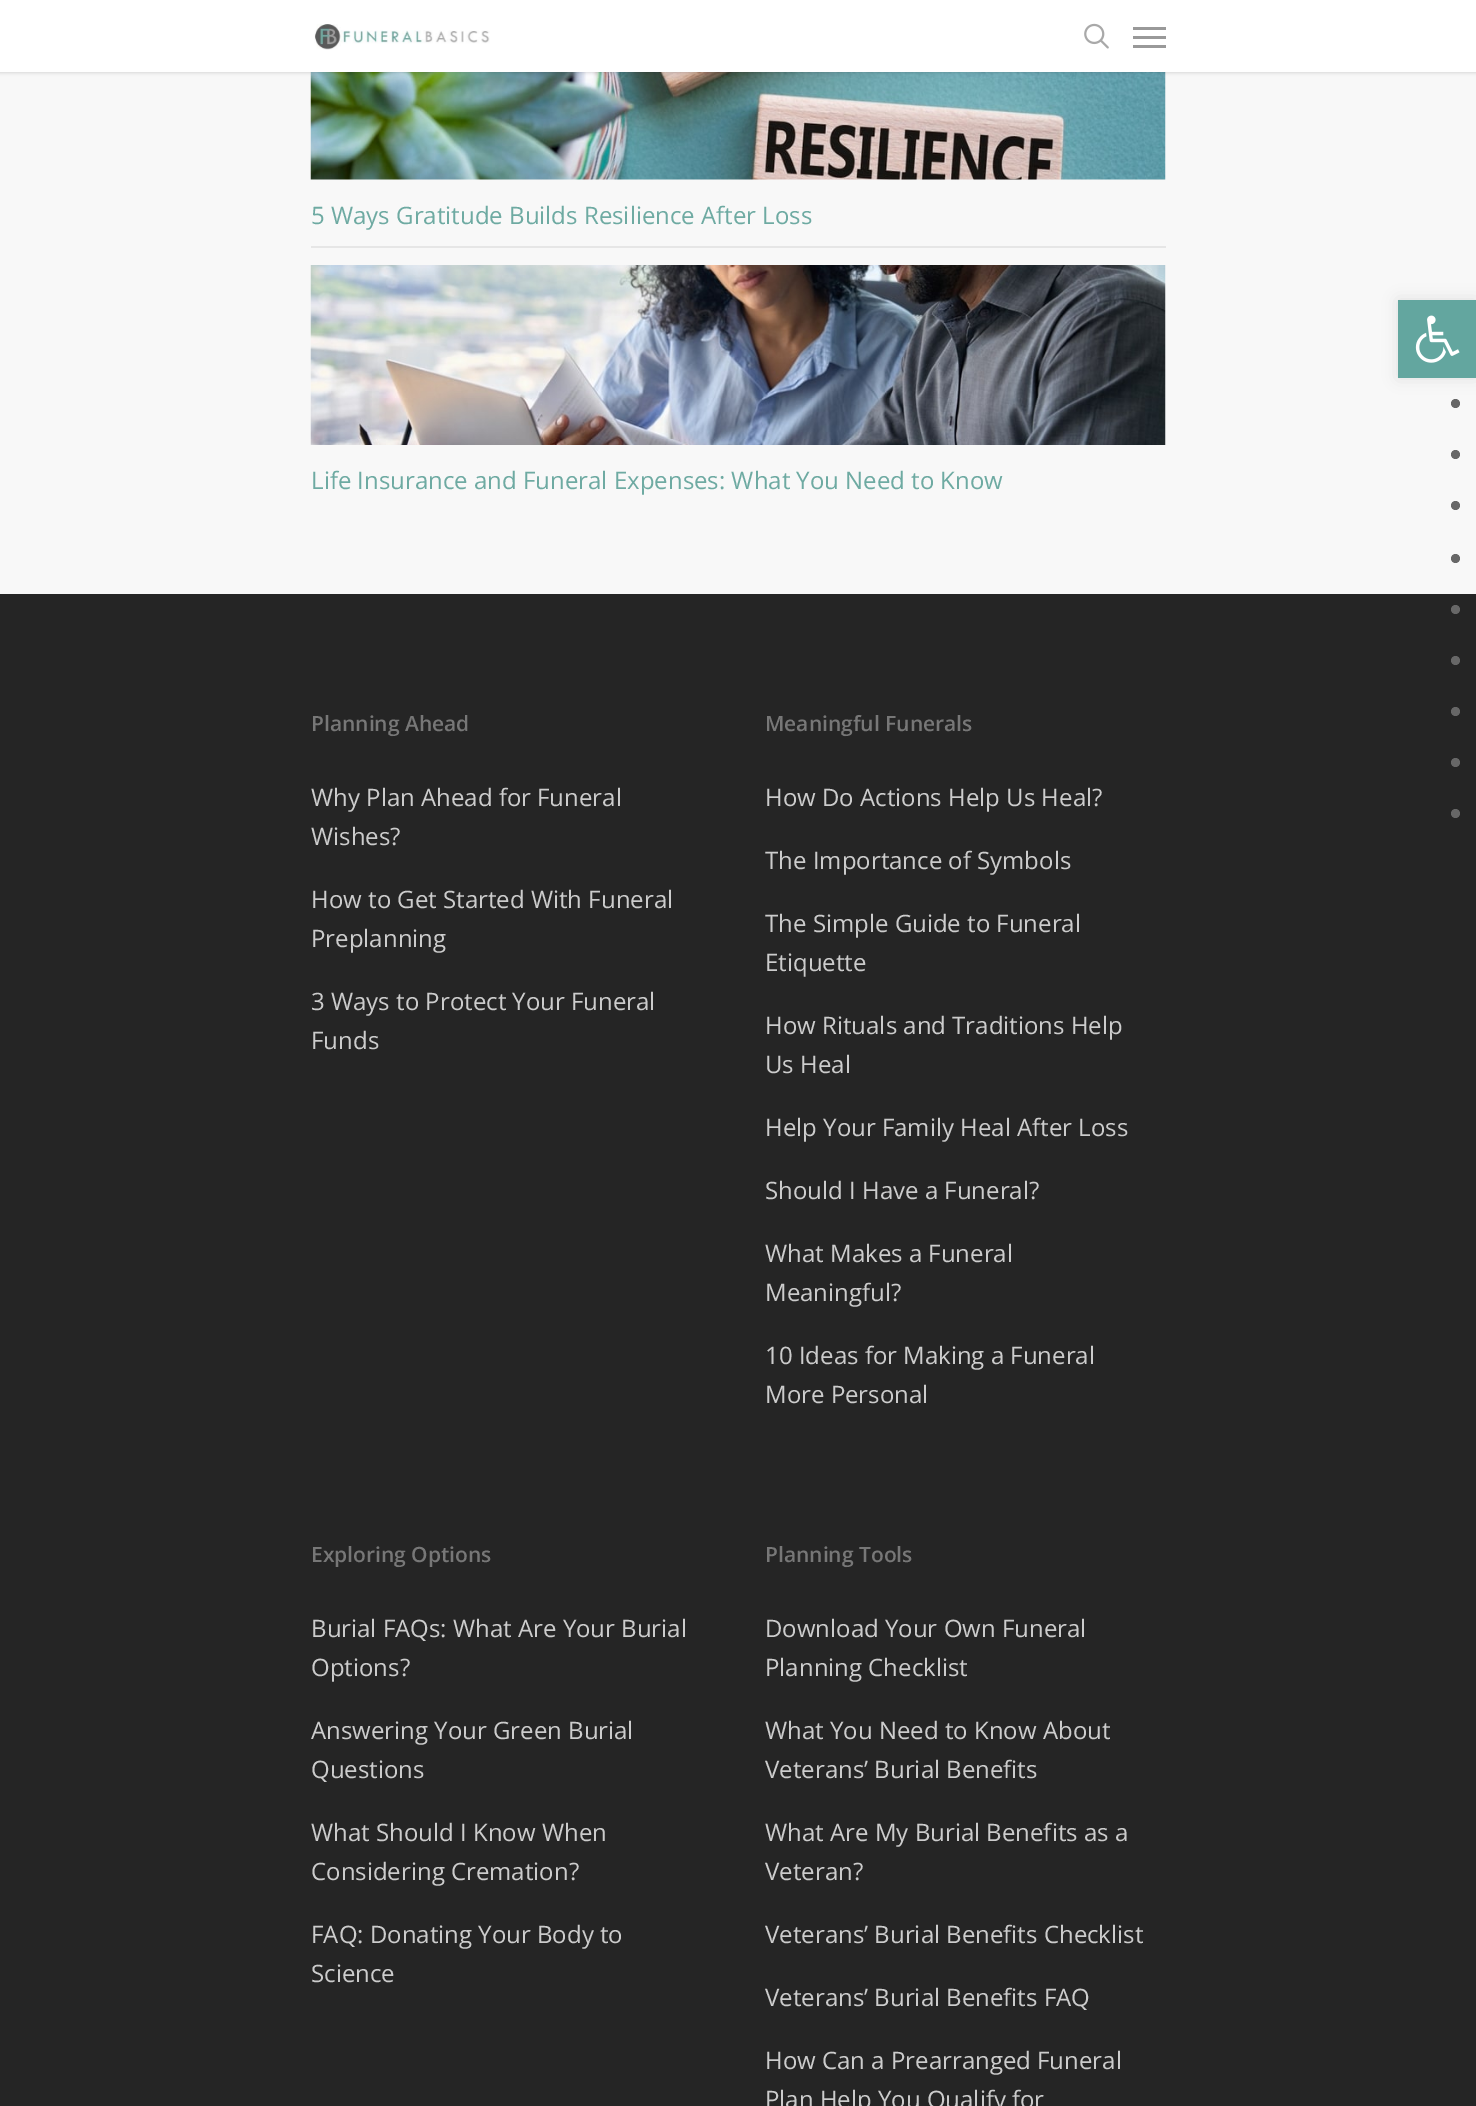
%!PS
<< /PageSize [1476 2106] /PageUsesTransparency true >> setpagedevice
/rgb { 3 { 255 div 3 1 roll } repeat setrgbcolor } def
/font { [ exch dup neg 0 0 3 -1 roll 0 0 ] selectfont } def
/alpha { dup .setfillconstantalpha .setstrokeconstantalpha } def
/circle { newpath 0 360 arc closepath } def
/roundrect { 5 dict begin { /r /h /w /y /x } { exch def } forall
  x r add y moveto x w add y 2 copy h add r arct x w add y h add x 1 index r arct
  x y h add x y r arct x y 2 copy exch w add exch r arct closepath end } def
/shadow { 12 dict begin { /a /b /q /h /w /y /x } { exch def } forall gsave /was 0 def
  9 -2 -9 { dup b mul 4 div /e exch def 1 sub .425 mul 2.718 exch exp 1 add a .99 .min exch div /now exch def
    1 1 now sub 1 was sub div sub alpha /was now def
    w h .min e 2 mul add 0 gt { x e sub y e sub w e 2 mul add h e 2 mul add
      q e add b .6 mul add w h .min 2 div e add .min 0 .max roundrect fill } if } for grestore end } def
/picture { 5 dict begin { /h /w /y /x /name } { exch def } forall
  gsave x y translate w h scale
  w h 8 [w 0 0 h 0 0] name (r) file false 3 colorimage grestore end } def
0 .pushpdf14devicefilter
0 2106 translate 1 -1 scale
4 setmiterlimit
248 248 248 rgb
0 0 1476 2106 rectfill
(img/3.rgb) 310 72 856 108 picture
0 0 0 rgb
0 0 1476 72 0 2 0.22 shadow
255 255 255 rgb
0 0 1476 72 rectfill
(img/1.rgb) 314 24 176 26 picture
(img/2.rgb) 1084 23 25 26 picture
[
  [1133 27 33 3 153 153 153]
  [1133 45 33 3 153 153 153]
  [1133 36 33 3 153 153 153]
  [311 246 855 2 230 230 230]
] { aload pop rgb rectfill } forall
(img/4.rgb) 310 265 856 180 picture
37 37 37 rgb
0 594 1476 1512 rectfill
103 103 103 rgb
1455.5 403.5 4.5 circle fill
0 0 0 rgb
1398 300 78 78 0 7.5 0.1 shadow
99 166 159 rgb
1398 300 78 78 rectfill
(img/5.rgb) 1415 315 45 48 picture
103 103 103 rgb
1455.5 454.5 4.5 circle fill
1455.5 505.5 4.5 circle fill
1455.5 558.5 4.5 circle fill
1455.5 609.5 4.5 circle fill
1455.5 660.5 4.5 circle fill
1455.5 711.5 4.5 circle fill
1455.5 762.5 4.5 circle fill
1455.5 813.5 4.5 circle fill
/OpenSans-Regular 24 font
110 170 162 rgb
311 224 moveto (5 Ways Gratitude Builds Resilience After Loss) show
311 489 moveto (Life Insurance and Funeral Expenses: What You Need to Know) show
/OpenSans-SemiBold 21 font
119 119 119 rgb
311 731 moveto (Planning Ahead) show
/OpenSans-Regular 24 font
204 204 204 rgb
[
  [(Why Plan Ahead for Funeral) 311 806]
  [(Wishes?) 311 845]
  [(How to Get Started With Funeral) 311 908]
  [(Preplanning) 311 947]
  [(3 Ways to Protect Your Funeral) 311 1010]
  [(Funds) 311 1049]
] { aload pop moveto show } forall
/OpenSans-SemiBold 21 font
119 119 119 rgb
765 731 moveto (Meaningful Funerals) show
/OpenSans-Regular 24 font
204 204 204 rgb
[
  [(How Do Actions Help Us Heal?) 765 806]
  [(The Importance of Symbols) 765 869]
  [(The Simple Guide to Funeral) 765 932]
  [(Etiquette) 765 971]
  [(How Rituals and Traditions Help) 765 1034]
  [(Us Heal) 765 1073]
  [(Help Your Family Heal After Loss) 765 1136]
  [(Should I Have a Funeral?) 765 1199]
  [(What Makes a Funeral) 765 1262]
  [(Meaningful?) 765 1301]
  [(10 Ideas for Making a Funeral) 765 1364]
  [(More Personal) 765 1403]
] { aload pop moveto show } forall
/OpenSans-SemiBold 21 font
119 119 119 rgb
311 1562 moveto (Exploring Options) show
/OpenSans-Regular 24 font
204 204 204 rgb
[
  [(Burial FAQs: What Are Your Burial) 311 1637]
  [(Options?) 311 1676]
  [(Answering Your Green Burial) 311 1739]
  [(Questions) 311 1778]
  [(What Should I Know When) 311 1841]
  [(Considering Cremation?) 311 1880]
  [(FAQ: Donating Your Body to) 311 1943]
  [(Science) 311 1982]
] { aload pop moveto show } forall
/OpenSans-SemiBold 21 font
119 119 119 rgb
765 1562 moveto (Planning Tools) show
/OpenSans-Regular 24 font
204 204 204 rgb
[
  [(Download Your Own Funeral) 765 1637]
  [(Planning Checklist) 765 1676]
  [(What You Need to Know About) 765 1739]
  [(Veterans’ Burial Benefits) 765 1778]
  [(What Are My Burial Benefits as a) 765 1841]
  [(Veteran?) 765 1880]
  [(Veterans’ Burial Benefits Checklist) 765 1943]
  [(Veterans’ Burial Benefits FAQ) 765 2006]
  [(How Can a Prearranged Funeral) 765 2069]
  [(Plan Help You Qualify for) 765 2108]
] { aload pop moveto show } forall
.poppdf14devicefilter showpage
